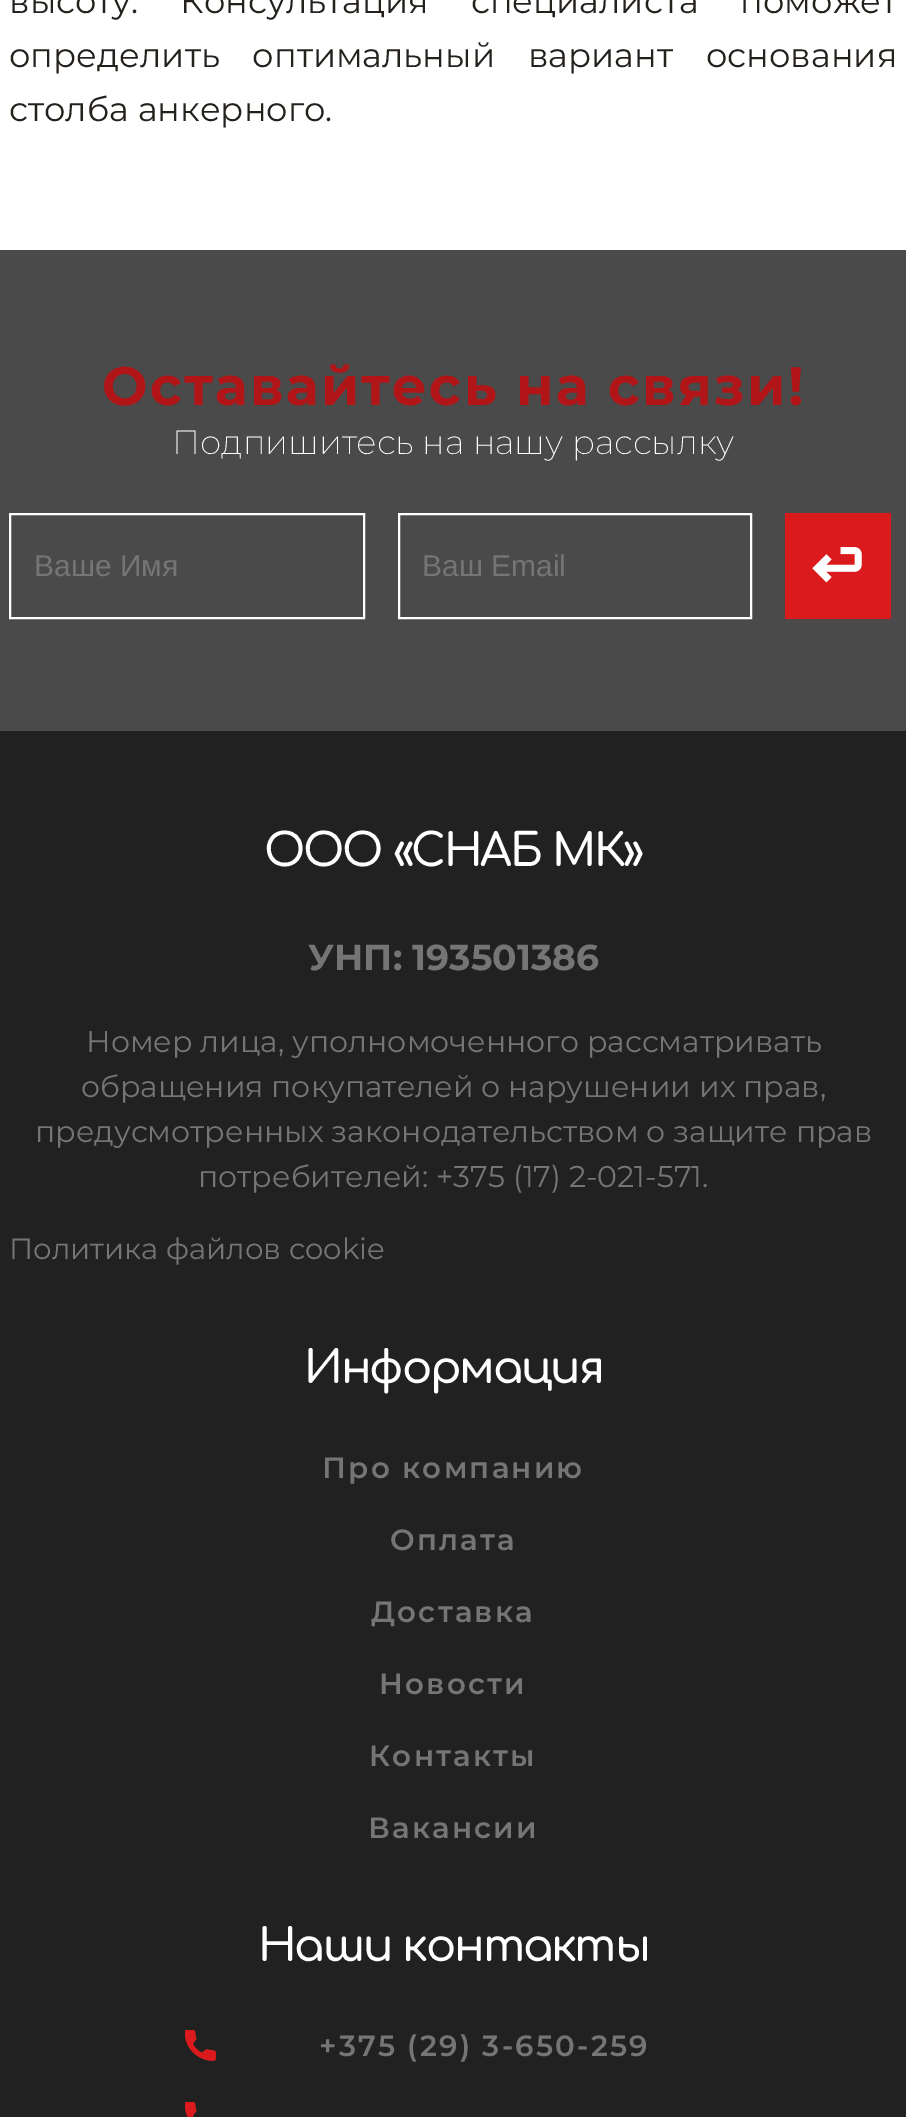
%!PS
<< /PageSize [906 2117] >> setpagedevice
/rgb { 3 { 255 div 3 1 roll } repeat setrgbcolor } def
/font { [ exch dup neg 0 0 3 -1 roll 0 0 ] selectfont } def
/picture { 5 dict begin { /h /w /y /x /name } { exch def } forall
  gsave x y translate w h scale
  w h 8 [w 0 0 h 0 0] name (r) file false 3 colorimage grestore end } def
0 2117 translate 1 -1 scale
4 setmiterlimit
255 255 255 rgb
0 0 906 2117 rectfill
74 74 74 rgb
0 250 906 481 rectfill
255 255 255 rgb
2 setlinewidth
10 514 354 104 rectstroke
399 514 352 104 rectstroke
218 26 28 rgb
785 513 106 106 rectfill
(img/1.rgb) 812 547 50 36 picture
33 33 33 rgb
0 731 906 1386 rectfill
(img/2.rgb) 185 2030 31 31 picture
(img/3.rgb) 185 2102 12 15 picture
/Montserrat-Regular 33.75 font
36 33 29 rgb
9 13 moveto 33 0 32 (высоту. Консультация специалиста поможет) widthshow
9 67 moveto 24 0 32 (определить оптимальный вариант основания) widthshow
9 121 moveto (столба анкерного.) show
/Montserrat-Bold 54 font
177 21 23 rgb
102 405 moveto 2.25 0 (Оставайтесь на связи!) ashow
/Montserrat-ExtraLight 33.75 font
255 255 255 rgb
172 454 moveto (Подпишитесь на нашу рассылку) show
/LiberationSans-Regular 30 font
117 117 117 rgb
34 576 moveto (Ваше Имя) show
422 576 moveto (Ваш Email) show
/Comfortaa-SemiBold 45 font
255 255 255 rgb
264 866 moveto -2.25 0 (ООО «СНАБ МК») ashow
/Montserrat-Bold 36 font
117 117 117 rgb
308 970 moveto (УНП: 193501386) show
/Montserrat-Regular 30 font
[
  [(Номер лица, уполномоченного рассматривать) 86 1052]
  [(обращения покупателей о нарушении их прав,) 81 1097]
  [(предусмотренных законодательством о защите прав) 35 1142]
  [(потребителей: +375 \(17\) 2-021-571.) 198 1187]
] { aload pop moveto show } forall
/Montserrat-Regular 29.25 font
9 1259 moveto (Политика файлов cookie) show
/Comfortaa-SemiBold 45 font
255 255 255 rgb
304 1383 moveto -2.25 0 (Информация) ashow
/Montserrat-SemiBold 29.25 font
117 117 117 rgb
322 1478 moveto 2.25 0 (Про компанию) ashow
390 1550 moveto 2.25 0 (Оплата) ashow
371 1622 moveto 2.25 0 (Доставка) ashow
379 1694 moveto 2.25 0 (Новости) ashow
369 1766 moveto 2.25 0 (Контакты) ashow
368 1838 moveto 2.25 0 (Вакансии) ashow
/Comfortaa-SemiBold 45 font
255 255 255 rgb
258 1961 moveto -2.25 0 (Наши контакты) ashow
/Montserrat-SemiBold 29.25 font
117 117 117 rgb
319 2056 moveto 2.25 0 (+375 \(29\) 3-650-259) ashow
showpage
